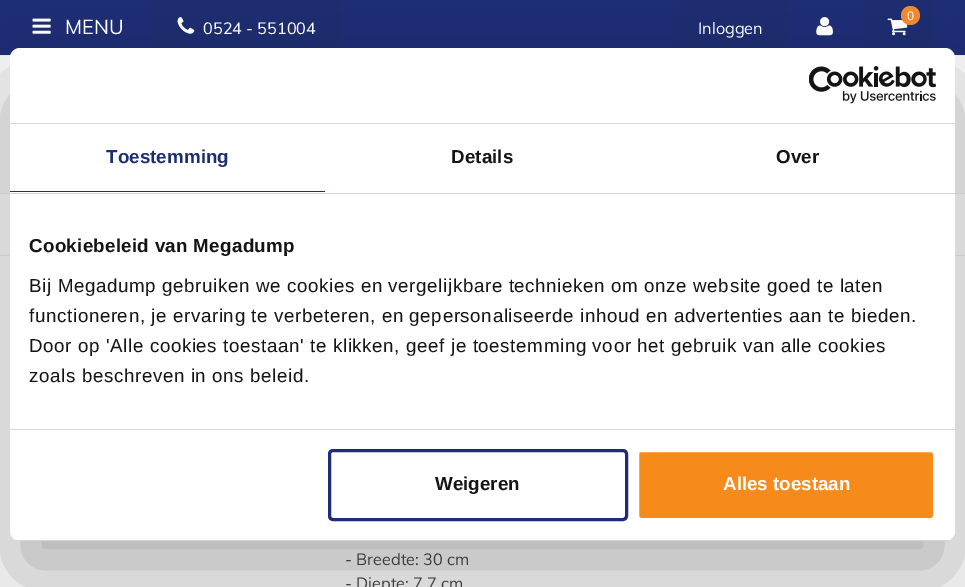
%!PS
<< /PageSize [965 587] /PageUsesTransparency true >> setpagedevice
/rgb { 3 { 255 div 3 1 roll } repeat setrgbcolor } def
/font { [ exch dup neg 0 0 3 -1 roll 0 0 ] selectfont } def
/alpha { dup .setfillconstantalpha .setstrokeconstantalpha } def
/circle { newpath 0 360 arc closepath } def
/roundrect { 5 dict begin { /r /h /w /y /x } { exch def } forall
  x r add y moveto x w add y 2 copy h add r arct x w add y h add x 1 index r arct
  x y h add x y r arct x y 2 copy exch w add exch r arct closepath end } def
/shadow { 12 dict begin { /a /b /q /h /w /y /x } { exch def } forall gsave /was 0 def
  9 -2 -9 { dup b mul 4 div /e exch def 1 sub .425 mul 2.718 exch exp 1 add a .99 .min exch div /now exch def
    1 1 now sub 1 was sub div sub alpha /was now def
    w h .min e 2 mul add 0 gt { x e sub y e sub w e 2 mul add h e 2 mul add
      q e add b .6 mul add w h .min 2 div e add .min 0 .max roundrect fill } if } for grestore end } def
/picture { 5 dict begin { /h /w /y /x /name } { exch def } forall
  gsave x y translate w h scale
  w h 8 [w 0 0 h 0 0] name (r) file false 3 colorimage grestore end } def
0 .pushpdf14devicefilter
0 587 translate 1 -1 scale
4 setmiterlimit
255 255 255 rgb
0 0 965 587 rectfill
30 46 117 rgb
0 0 965 55 rectfill
(img/1.rgb) 32 18 19 16 picture
29 45 113 rgb
153 0 188 48 rectfill
(img/2.rgb) 177 17 18 17 picture
863 0 70 48 rectfill
(img/3.rgb) 887 18 21 18 picture
243 138 48 rgb
910.5 15.5 9.5 circle fill
29 45 113 rgb
673 1 115 47 rectfill
(img/4.rgb) 816 17 17 19 picture
[
  [0 56 965 137 249 249 249]
  [0 55 965 1 239 239 239]
  [0 193 965 1 239 239 239]
  [0 255 965 1 239 239 239]
] { aload pop rgb rectfill } forall
0 0 0 rgb
10 88 945 493 10 42.5 0.3 shadow
255 255 255 rgb
10 48 945 493 10 roundrect fill
214 214 214 rgb
10 123 945 1 rectfill
(img/5.rgb) 809 66 127 38 picture
[
  [10 193 945 1 214 214 214]
  [10 191 315 1 29 46 117]
  [10 429 945 1 214 214 214]
] { aload pop rgb rectfill } forall
gsave
10 48 945 493 10 roundrect clip newpath
10 540 945 1 rectfill
grestore
30 45 116 rgb
3 setlinewidth
329.5 450.5 297 69 3.5 roundrect stroke
246 139 28 rgb
637.5 450.5 297 69 3.5 roundrect gsave fill grestore
255 255 255 rgb
stroke
/Muli-Regular 20 font
65 34 moveto (MENU) show
/Muli-Regular 16.25 font
203 34 moveto (0524 - 551004) show
/Muli-Regular 12 font
907 20 moveto (0) show
/Muli-Regular 16.25 font
698 34 moveto (Inloggen) show
60 60 60 rgb
345 565 moveto (- Breedte: 30 cm) show
345 589 moveto (- Diepte: 7.7 cm) show
/LiberationSans-Bold 18.75 font
29 46 117 rgb
106 163 moveto 0.1 0 (Toestemming) ashow
20 20 20 rgb
451 163 moveto 0.1 0 (Details) ashow
776 163 moveto 0.1 0 (Over) ashow
29 252 moveto 0.3 0 (Cookiebeleid van Megadump) ashow
/LiberationSans-Regular 18.75 font
29 292 moveto 0.62 0 (Bij Megadump gebruiken we cookies en vergelijkbare technieken om onze website goed te laten) ashow
29 322 moveto 0.62 0 (functioneren, je ervaring te verbeteren, en gepersonaliseerde inhoud en advertenties aan te bieden.) ashow
29 352 moveto 0.62 0 (Door op 'Alle cookies toestaan' te klikken, geef je toestemming voor het gebruik van alle cookies) ashow
29 382 moveto 0.62 0 (zoals beschreven in ons beleid.) ashow
/LiberationSans-Bold 18.75 font
435 490 moveto (Weigeren) show
255 255 255 rgb
723 490 moveto (Alles toestaan) show
.poppdf14devicefilter showpage
